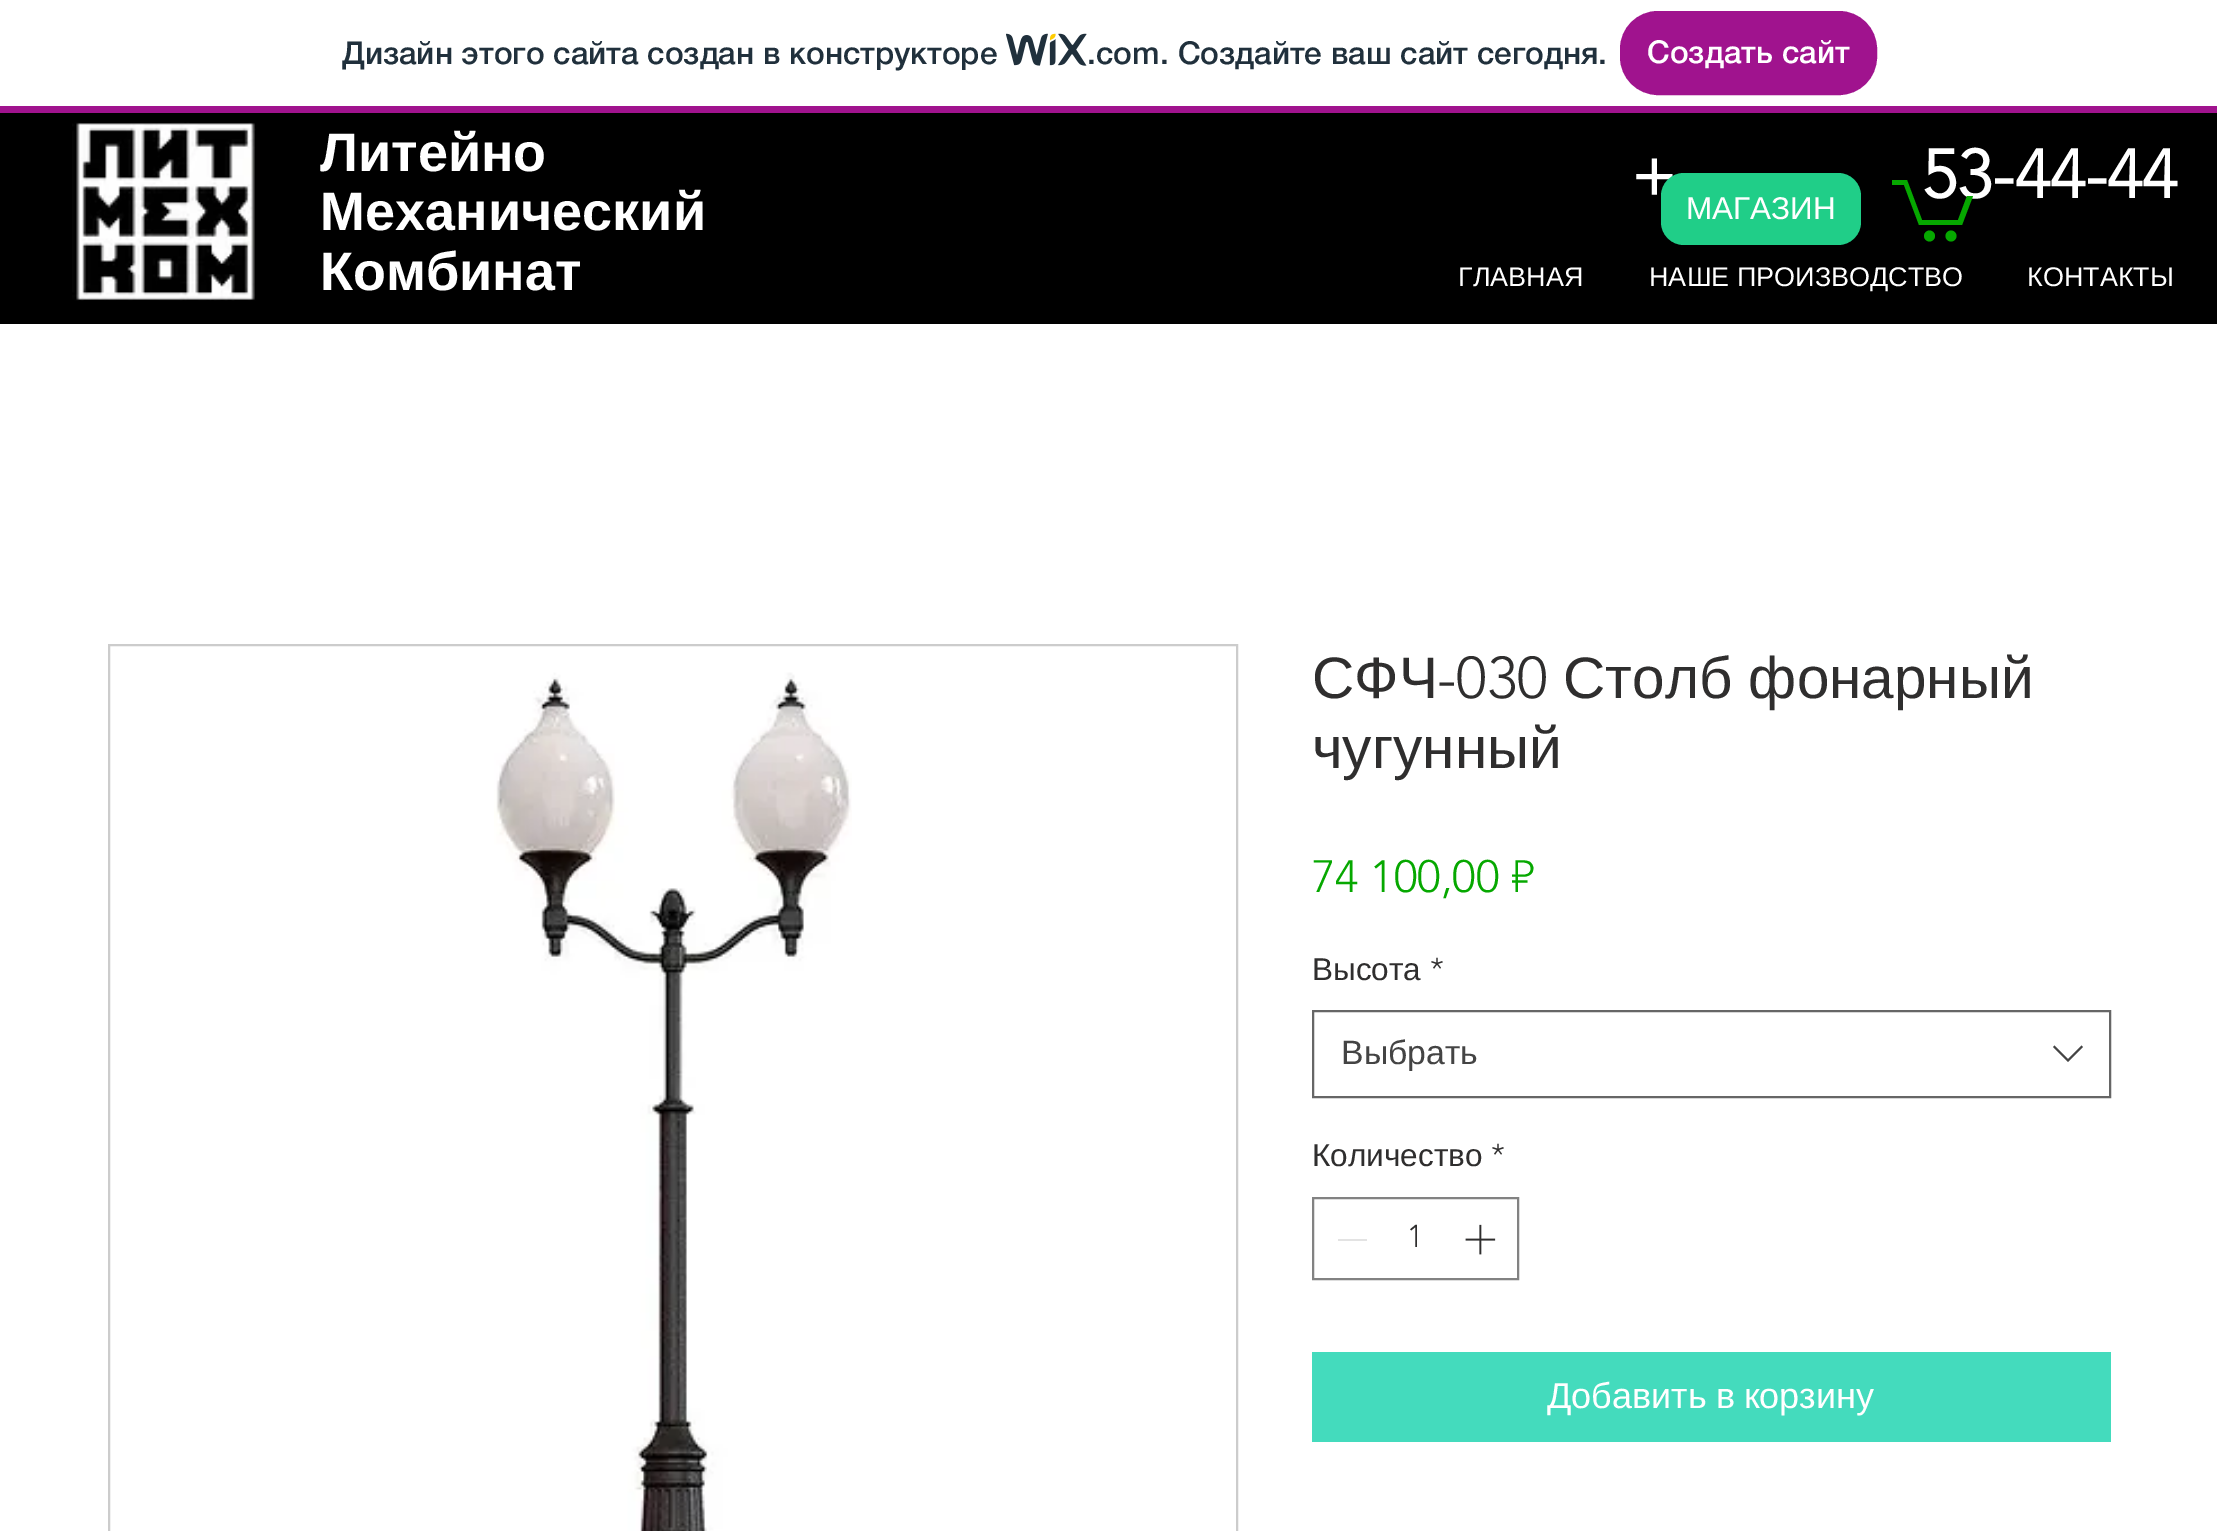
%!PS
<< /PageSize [2217 1531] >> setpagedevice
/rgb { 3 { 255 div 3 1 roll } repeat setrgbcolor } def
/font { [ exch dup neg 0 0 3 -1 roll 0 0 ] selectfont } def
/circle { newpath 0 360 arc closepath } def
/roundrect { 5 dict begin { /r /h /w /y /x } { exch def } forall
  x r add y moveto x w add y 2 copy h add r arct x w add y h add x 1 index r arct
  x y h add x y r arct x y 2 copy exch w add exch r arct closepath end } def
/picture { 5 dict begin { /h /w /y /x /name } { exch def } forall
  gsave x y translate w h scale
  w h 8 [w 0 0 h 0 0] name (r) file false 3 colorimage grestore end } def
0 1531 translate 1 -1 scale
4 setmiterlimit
255 255 255 rgb
0 0 2217 1531 rectfill
160 19 142 rgb
0 106 2217 7 rectfill
(img/1.rgb) 1006 33 81 33 picture
1621 12 255 82 37 roundrect gsave fill grestore
2 setlinewidth
stroke
0 0 0 rgb
0 113 2217 211 rectfill
(img/2.rgb) 72 122 184 179 picture
6 168 0 rgb
1951 236 5.5 circle fill
1929.5 236 5.5 circle fill
204 204 204 rgb
109 645 1128 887 rectstroke
(img/3.rgb) 494 672 358 859 picture
102 102 102 rgb
1313 1011 797 86 rectstroke
68 68 68 rgb
2081.5 1045.5 moveto 2083 1047 lineto 2068 1062 lineto 2053 1047 lineto 2054.5 1045.5 lineto 2068 1059 lineto closepath eofill
130 130 130 rgb
1313 1198 205 81 rectstroke
227 227 227 rgb
1338 1239 29 2 rectfill
(img/4.rgb) 1465 1224 31 31 picture
68 219 189 rgb
1312 1352 799 90 rectfill
/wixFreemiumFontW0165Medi-Medium 31.5 font
32 48 60 rgb
342 64 moveto (Дизайн этого сайта создан в конструкторе) show
/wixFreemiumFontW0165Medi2-Medium 31.5 font
1087 64 moveto (.com) show
/wixFreemiumFontW0165Medi-Medium 31.5 font
1160 64 moveto (. Создайте ваш сайт сегодня.) show
255 255 255 rgb
1647 63 moveto (Создать сайт) show
/LiberationSans-Bold 54 font
320 171 moveto (Литейно) show
/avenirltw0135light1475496-Bold 67.5 font
1631 198 moveto (+) show
1922 198 moveto (53-44-44) show
/LiberationSans-Bold 54 font
320 230 moveto (Механический) show
320 290 moveto (Комбинат) show
/LiberationSans-Regular 27 font
[
  [(ГЛАВНАЯ) 1458 286]
  [(НАШЕ ПРОИЗВОДСТВО) 1649 286]
  [(КОНТАКТЫ) 2027 286]
] { aload pop moveto show } forall
32 206 136 rgb
1661 173 200 72 23 roundrect fill
/LiberationSans-Regular 31.5 font
255 255 255 rgb
1686 219 moveto (МАГАЗИН) show
6 168 0 rgb
1973 196 moveto 1962 225 lineto 1919 225 lineto 1904 185 lineto 1892 185 lineto 1892 180 lineto 1907 180 lineto 1922 220 lineto 1958 220 lineto 1967 196 lineto fill
/LiberationSans-Regular 58.5 font
47 46 46 rgb
1312 698 moveto (СФЧ) show
/avenirltw0135light1475496-Light 58.5 font
1437 698 moveto (-030) show
/LiberationSans-Regular 58.5 font
1563 698 moveto (Столб фонарный) show
1312 768 moveto (чугунный) show
/avenirltw0135light1475496-Light 45 font
6 168 0 rgb
1312 892 moveto (74 100,00 ₽) show
/LiberationSans-Regular 31.5 font
47 46 46 rgb
1312 980 moveto (Высота) show
/avenirltw0135light1475496-Light 31.5 font
1430 980 moveto (*) show
/LiberationSans-Regular 33.75 font
68 68 68 rgb
1341 1064 moveto (Выбрать) show
/LiberationSans-Regular 31.5 font
47 46 46 rgb
1312 1166 moveto (Количество) show
/avenirltw0135light1475496-Light 31.5 font
1491 1166 moveto (*) show
1407 1247 moveto (1) show
/LiberationSans-Regular 36 font
255 255 255 rgb
1547 1408 moveto -1 0 32 (Добавить в корзину) widthshow
showpage
